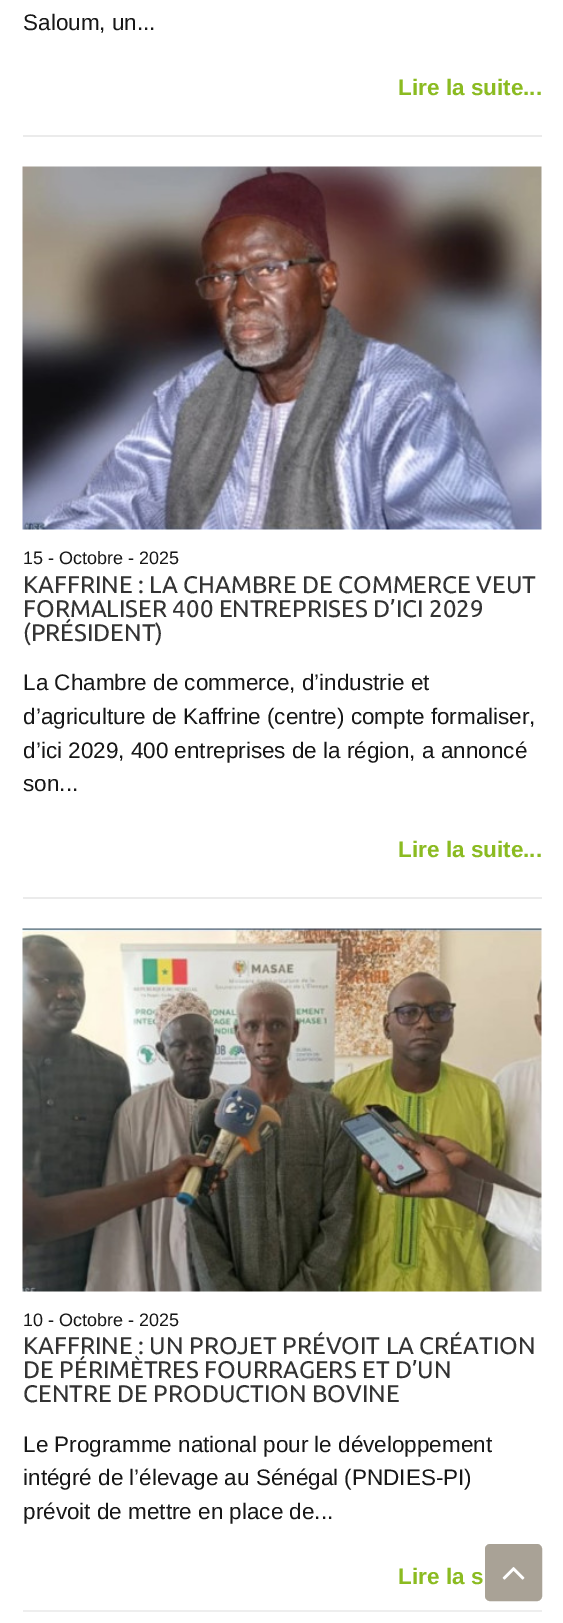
%!PS
<< /PageSize [563 1623] >> setpagedevice
/rgb { 3 { 255 div 3 1 roll } repeat setrgbcolor } def
/font { [ exch dup neg 0 0 3 -1 roll 0 0 ] selectfont } def
/roundrect { 5 dict begin { /r /h /w /y /x } { exch def } forall
  x r add y moveto x w add y 2 copy h add r arct x w add y h add x 1 index r arct
  x y h add x y r arct x y 2 copy exch w add exch r arct closepath end } def
/picture { 5 dict begin { /h /w /y /x /name } { exch def } forall
  gsave x y translate w h scale
  w h 8 [w 0 0 h 0 0] name (r) file false 3 colorimage grestore end } def
0 1623 translate 1 -1 scale
4 setmiterlimit
255 255 255 rgb
0 0 563 1623 rectfill
235 235 235 rgb
23 135 519 2 rectfill
(img/1.rgb) 22 166 520 364 picture
23 897 519 2 rectfill
(img/2.rgb) 22 928 520 364 picture
238 238 238 rgb
23 1610 519 2 rectfill
169 162 150 rgb
486 1545 55 55 4 roundrect gsave fill grestore
2 setlinewidth
stroke
(img/3.rgb) 502 1567 23 13 picture
/LiberationSans-Regular 22.5 font
23 23 23 rgb
23 30 moveto (Saloum, un...) show
/LiberationSans-Bold 22.5 font
139 187 33 rgb
398 95 moveto (Lire la suite...) show
/LiberationSans-Regular 18 font
23 23 23 rgb
23 564 moveto (15 - Octobre - 2025) show
/Ubuntu-Regular 24 font
51 51 51 rgb
[
  [(KAFFRINE : LA CHAMBRE DE COMMERCE VEUT) 23 593]
  [(FORMALISER 400 ENTREPRISES D’ICI 2029) 23 617]
  [(\(PRÉSIDENT\)) 23 641]
] { aload pop moveto show } forall
/LiberationSans-Regular 22.5 font
23 23 23 rgb
[
  [(La Chambre de commerce, d’industrie et) 23 690]
  [(d’agriculture de Kaffrine \(centre\) compte formaliser,) 23 724]
  [(d’ici 2029, 400 entreprises de la région, a annoncé) 23 758]
  [(son...) 23 791]
] { aload pop moveto show } forall
/LiberationSans-Bold 22.5 font
139 187 33 rgb
398 857 moveto (Lire la suite...) show
/LiberationSans-Regular 18 font
23 23 23 rgb
23 1326 moveto (10 - Octobre - 2025) show
/Ubuntu-Regular 24 font
51 51 51 rgb
[
  [(KAFFRINE : UN PROJET PRÉVOIT LA CRÉATION) 23 1354]
  [(DE PÉRIMÈTRES FOURRAGERS ET D’UN) 23 1378]
  [(CENTRE DE PRODUCTION BOVINE) 23 1402]
] { aload pop moveto show } forall
/LiberationSans-Regular 22.5 font
23 23 23 rgb
[
  [(Le Programme national pour le développement) 23 1452]
  [(intégré de l’élevage au Sénégal \(PNDIES-PI\)) 23 1485]
  [(prévoit de mettre en place de...) 23 1519]
] { aload pop moveto show } forall
/LiberationSans-Bold 22.5 font
139 187 33 rgb
398 1584 moveto (Lire la s) show
showpage
